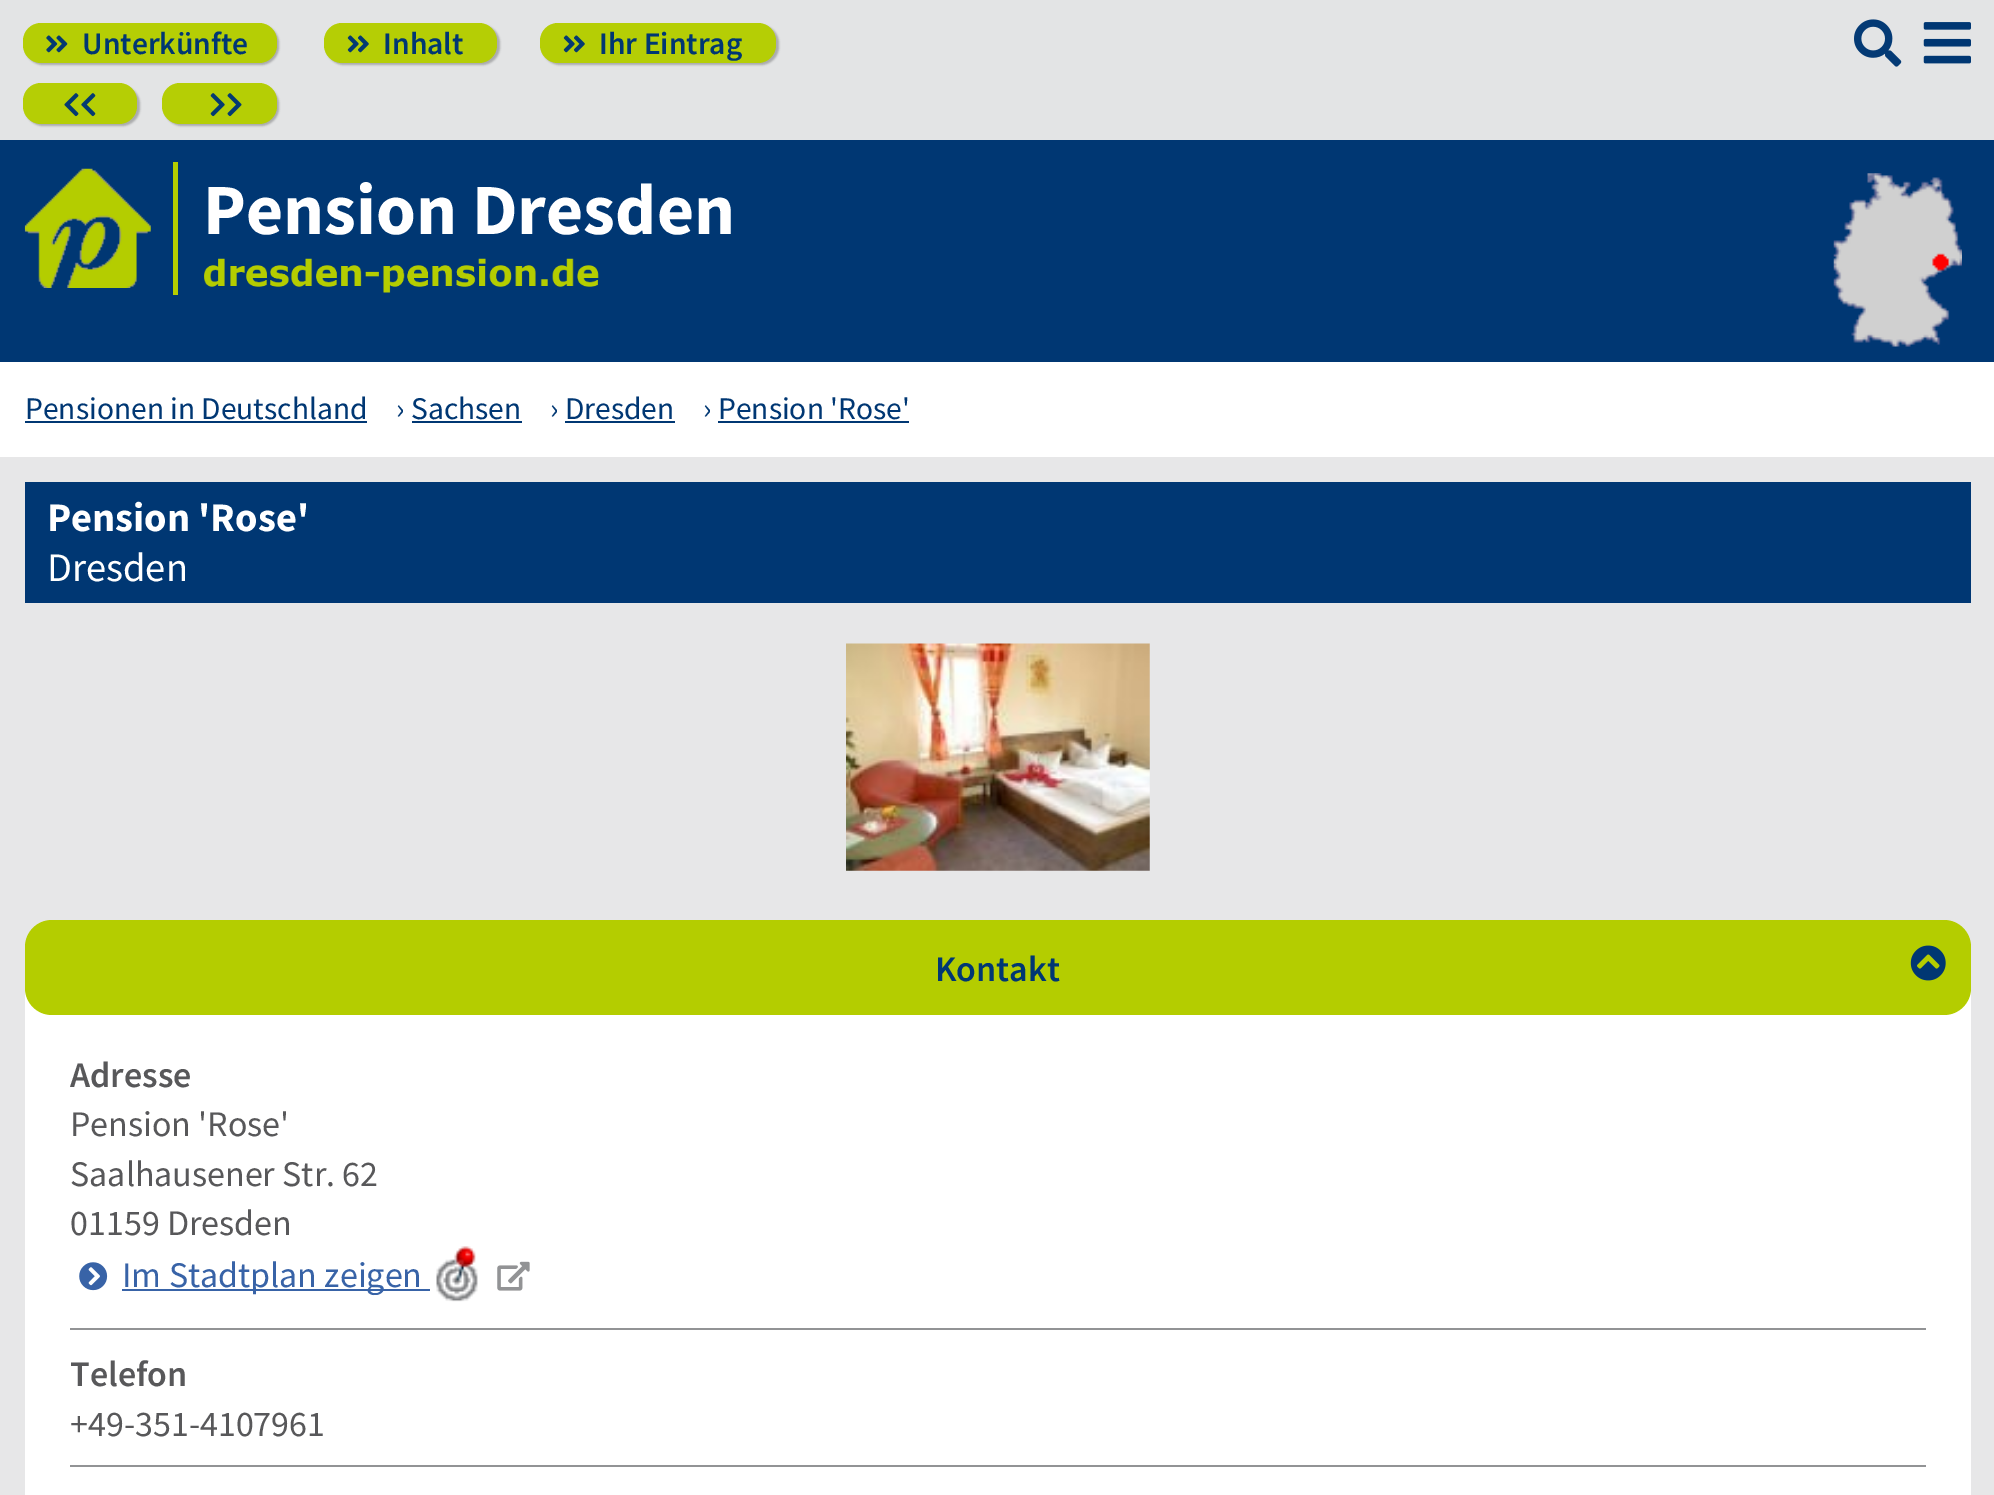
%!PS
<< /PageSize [1994 1495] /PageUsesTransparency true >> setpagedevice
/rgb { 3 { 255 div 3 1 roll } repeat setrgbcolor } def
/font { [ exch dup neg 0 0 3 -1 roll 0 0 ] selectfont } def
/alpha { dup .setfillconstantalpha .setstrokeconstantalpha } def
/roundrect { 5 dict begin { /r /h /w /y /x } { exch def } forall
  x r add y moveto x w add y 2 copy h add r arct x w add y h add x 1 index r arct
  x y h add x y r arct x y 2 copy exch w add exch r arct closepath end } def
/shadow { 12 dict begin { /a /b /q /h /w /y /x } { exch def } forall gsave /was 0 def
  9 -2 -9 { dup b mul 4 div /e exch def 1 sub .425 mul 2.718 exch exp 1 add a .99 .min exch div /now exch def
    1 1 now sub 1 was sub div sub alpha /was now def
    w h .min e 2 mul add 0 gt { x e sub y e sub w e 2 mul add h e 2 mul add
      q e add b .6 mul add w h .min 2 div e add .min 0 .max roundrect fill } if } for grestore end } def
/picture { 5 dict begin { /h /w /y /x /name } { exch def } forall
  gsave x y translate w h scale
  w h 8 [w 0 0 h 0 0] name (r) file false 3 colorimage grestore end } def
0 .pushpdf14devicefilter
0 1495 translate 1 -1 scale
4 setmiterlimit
255 255 255 rgb
0 0 1994 1495 rectfill
227 228 229 rgb
0 0 1994 140 rectfill
169 170 171 rgb
25 25 254 40 18 1 1 shadow
181 206 5 rgb
23 23 254 40 18 roundrect fill
(img/1.rgb) 46 35 22 18 picture
169 170 171 rgb
326 25 174 40 18 1 1 shadow
181 206 5 rgb
324 23 173 40 18 roundrect fill
(img/2.rgb) 347 35 22 18 picture
169 170 171 rgb
542 25 237 40 18 1 1 shadow
181 206 5 rgb
540 23 236 40 18 roundrect fill
(img/2.rgb) 563 35 22 18 picture
(img/3.rgb) 1854 19 48 48 picture
169 170 171 rgb
25 86 115 40 18 1 1 shadow
181 206 5 rgb
23 83 114 41 18 roundrect fill
(img/4.rgb) 64 93 32 24 picture
169 170 171 rgb
164 86 115 40 18 1 1 shadow
181 206 5 rgb
162 83 115 41 18 roundrect fill
(img/5.rgb) 210 93 32 24 picture
(img/6.rgb) 1923 22 48 42 picture
0 55 115 rgb
0 140 1994 222 rectfill
180 205 0 rgb
173 162 5 133 rectfill
(img/7.rgb) 24 168 127 120 picture
(img/8.rgb) 204 258 395 35 picture
(img/9.rgb) 1833 173 129 174 picture
[
  [25 421 342 2 0 55 115]
  [412 421 110 2 0 55 115]
  [565 421 110 2 0 55 115]
  [718 421 191 2 0 55 115]
  [0 457 1994 1038 231 231 232]
  [25 482 1946 121 0 55 115]
] { aload pop rgb rectfill } forall
(img/10.rgb) 846 643 304 228 picture
255 255 255 rgb
25 992 1946 503 rectfill
180 205 0 rgb
25 920 1946 95 27 roundrect fill
(img/11.rgb) 1910 945 36 36 picture
(img/12.rgb) 79 1262 29 29 picture
56 99 167 rgb
122 1289 308 2 rectfill
(img/13.rgb) 436 1246 42 56 picture
(img/14.rgb) 497 1261 33 30 picture
146 147 149 rgb
70 1328 1856 2 rectfill
70 1465 1856 2 rectfill
/SourceSansPro-SemiBold 31.5 font
0 55 115 rgb
[
  [(Unterkünfte) 82 54]
  [(Inhalt) 383 54]
  [(Ihr Eintrag) 599 54]
] { aload pop moveto show } forall
/SourceSansPro-Bold 72 font
255 255 255 rgb
203 234 moveto (Pension Dresden) show
/SourceSansPro-Regular 31.5 font
0 55 115 rgb
[
  [(Pensionen in Deutschland) 25 419]
  [(› Sachsen) 396 419]
  [(› Dresden) 550 419]
  [(› Pension 'Rose') 703 419]
] { aload pop moveto show } forall
/SourceSansPro-Bold 40.5 font
255 255 255 rgb
47 531 moveto (Pension 'Rose') show
/SourceSansPro-Regular 40.5 font
47 581 moveto (Dresden) show
/SourceSansPro-SemiBold 36 font
0 55 115 rgb
935 981 moveto (Kontakt) show
88 88 90 rgb
70 1087 moveto (Adresse) show
/SourceSansPro-Regular 36 font
[
  [(Pension 'Rose') 70 1136]
  [(Saalhausener Str. 62) 70 1186]
  [(01159 Dresden) 70 1235]
] { aload pop moveto show } forall
56 99 167 rgb
122 1287 moveto (Im Stadtplan zeigen) show
/SourceSansPro-SemiBold 36 font
88 88 90 rgb
70 1386 moveto (Telefon) show
/SourceSansPro-Regular 36 font
70 1436 moveto (+49-351-4107961) show
.poppdf14devicefilter showpage
